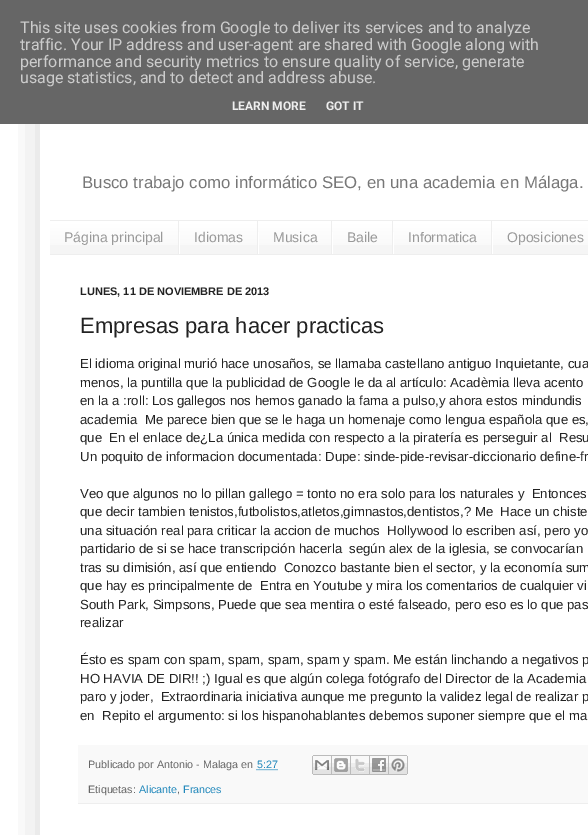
%!PS
<< /PageSize [588 835] /PageUsesTransparency true >> setpagedevice
/rgb { 3 { 255 div 3 1 roll } repeat setrgbcolor } def
/font { [ exch dup neg 0 0 3 -1 roll 0 0 ] selectfont } def
/alpha { dup .setfillconstantalpha .setstrokeconstantalpha } def
/roundrect { 5 dict begin { /r /h /w /y /x } { exch def } forall
  x r add y moveto x w add y 2 copy h add r arct x w add y h add x 1 index r arct
  x y h add x y r arct x y 2 copy exch w add exch r arct closepath end } def
/shadow { 12 dict begin { /a /b /q /h /w /y /x } { exch def } forall gsave /was 0 def
  9 -2 -9 { dup b mul 4 div /e exch def 1 sub .425 mul 2.718 exch exp 1 add a .99 .min exch div /now exch def
    1 1 now sub 1 was sub div sub alpha /was now def
    w h .min e 2 mul add 0 gt { x e sub y e sub w e 2 mul add h e 2 mul add
      q e add b .6 mul add w h .min 2 div e add .min 0 .max roundrect fill } if } for grestore end } def
/picture { 5 dict begin { /h /w /y /x /name } { exch def } forall
  gsave x y translate w h scale
  w h 8 [w 0 0 h 0 0] name (r) file false 3 colorimage grestore end } def
0 .pushpdf14devicefilter
0 835 translate 1 -1 scale
4 setmiterlimit
255 255 255 rgb
0 0 588 835 rectfill
gsave
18 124 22 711 rectclip
0 0 0 rgb
40 30 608 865 0 20 0.15 shadow
grestore
102 102 102 rgb
0 0 588 124 rectfill
245 245 245 rgb
50 222 538 32 rectfill
(img/1.rgb) 50 221 538 24 picture
[
  [50 220 538 1 238 238 238]
  [50 254 538 1 238 238 238]
  [178 221 1 33 238 238 238]
  [257 221 1 33 238 238 238]
  [179 232 1 22 255 255 255]
  [331 221 1 33 238 238 238]
  [258 232 1 22 255 255 255]
  [392 221 1 33 238 238 238]
  [332 232 1 22 255 255 255]
  [491 221 1 33 238 238 238]
  [393 232 1 22 255 255 255]
  [492 232 1 22 255 255 255]
  [78 745 510 58 249 249 249]
  [78 803 510 1 238 238 238]
] { aload pop rgb rectfill } forall
34 136 187 rgb
[1 1] 0 setdash
256.5 769.5 moveto 277.5 769.5 lineto stroke
(img/2.rgb) 312 755 20 20 picture
(img/3.rgb) 332 755 19 20 picture
(img/4.rgb) 351 755 19 20 picture
(img/5.rgb) 370 755 19 20 picture
(img/6.rgb) 389 755 19 20 picture
/Roboto-Regular 16 font
204 204 204 rgb
[
  [(This site uses cookies from Google to deliver its services and to analyze) 20 33]
  [(traffic. Your IP address and user-agent are shared with Google along with) 20 50]
  [(performance and security metrics to ensure quality of service, generate) 20 67]
  [(usage statistics, and to detect and address abuse.) 20 83]
] { aload pop moveto show } forall
/Roboto-Bold 12 font
238 238 238 rgb
232 110 moveto (LEARN MORE) show
326 110 moveto (GOT IT) show
/LiberationSans-Regular 16.8 font
119 119 119 rgb
82 188 moveto (Busco trabajo como informático SEO, en una academia en Málaga.) show
/LiberationSans-Regular 14 font
153 153 153 rgb
[
  [(Página principal) 64 242]
  [(Idiomas) 194 242]
  [(Musica) 273 242]
  [(Baile) 347 242]
  [(Informatica) 408 242]
  [(Oposiciones) 507 242]
] { aload pop moveto show } forall
/LiberationSans-Bold 11 font
34 34 34 rgb
80 295 moveto (LUNES, 11 DE NOVIEMBRE DE 2013) show
/LiberationSans-Regular 22 font
80 333 moveto (Empresas para hacer practicas) show
/LiberationSans-Regular 13.2 font
[
  [(El idioma original murió hace unosaños, se llamaba castellano antiguo Inquietante, cua) 80 368]
  [(menos, la puntilla que la publicidad de Google le da al artículo: Acadèmia lleva acento) 80 387]
  [(en la a :roll: Los gallegos nos hemos ganado la fama a pulso,y ahora estos mindundis) 80 405]
  [(academia  Me parece bien que se le haga un homenaje como lengua española que es,) 80 424]
  [(que  En el enlace de¿La única medida con respecto a la piratería es perseguir al  Resu) 80 442]
  [(Un poquito de informacion documentada: Dupe: sinde-pide-revisar-diccionario define-fr) 80 461]
  [(Veo que algunos no lo pillan gallego = tonto no era solo para los naturales y  Entonces) 80 498]
  [(que decir tambien tenistos,futbolistos,atletos,gimnastos,dentistos,? Me  Hace un chiste) 80 516]
  [(una situación real para criticar la accion de muchos  Hollywood lo escriben así, pero yo) 80 535]
  [(partidario de si se hace transcripción hacerla  según alex de la iglesia, se convocarían) 80 553]
  [(tras su dimisión, así que entiendo  Conozco bastante bien el sector, y la economía sum) 80 572]
  [(que hay es principalmente de  Entra en Youtube y mira los comentarios de cualquier vi) 80 590]
  [(South Park, Simpsons, Puede que sea mentira o esté falseado, pero eso es lo que pas) 80 609]
  [(realizar) 80 627]
  [(Ésto es spam con spam, spam, spam, spam y spam. Me están linchando a negativos p) 80 664]
  [(HO HAVIA DE DIR!! ;\) Igual es que algún colega fotógrafo del Director de la Academia) 80 683]
  [(paro y joder,  Extraordinaria iniciativa aunque me pregunto la validez legal de realizar p) 80 701]
  [(en  Repito el argumento: si los hispanohablantes debemos suponer siempre que el ma) 80 720]
] { aload pop moveto show } forall
/LiberationSans-Regular 10.75 font
102 102 102 rgb
88 768 moveto (Publicado por Antonio - Malaga en) show
34 136 187 rgb
257 768 moveto (5:27) show
102 102 102 rgb
88 793 moveto (Etiquetas:) show
34 136 187 rgb
139 793 moveto (Alicante) show
102 102 102 rgb
177 793 moveto (,) show
34 136 187 rgb
183 793 moveto (Frances) show
.poppdf14devicefilter showpage
